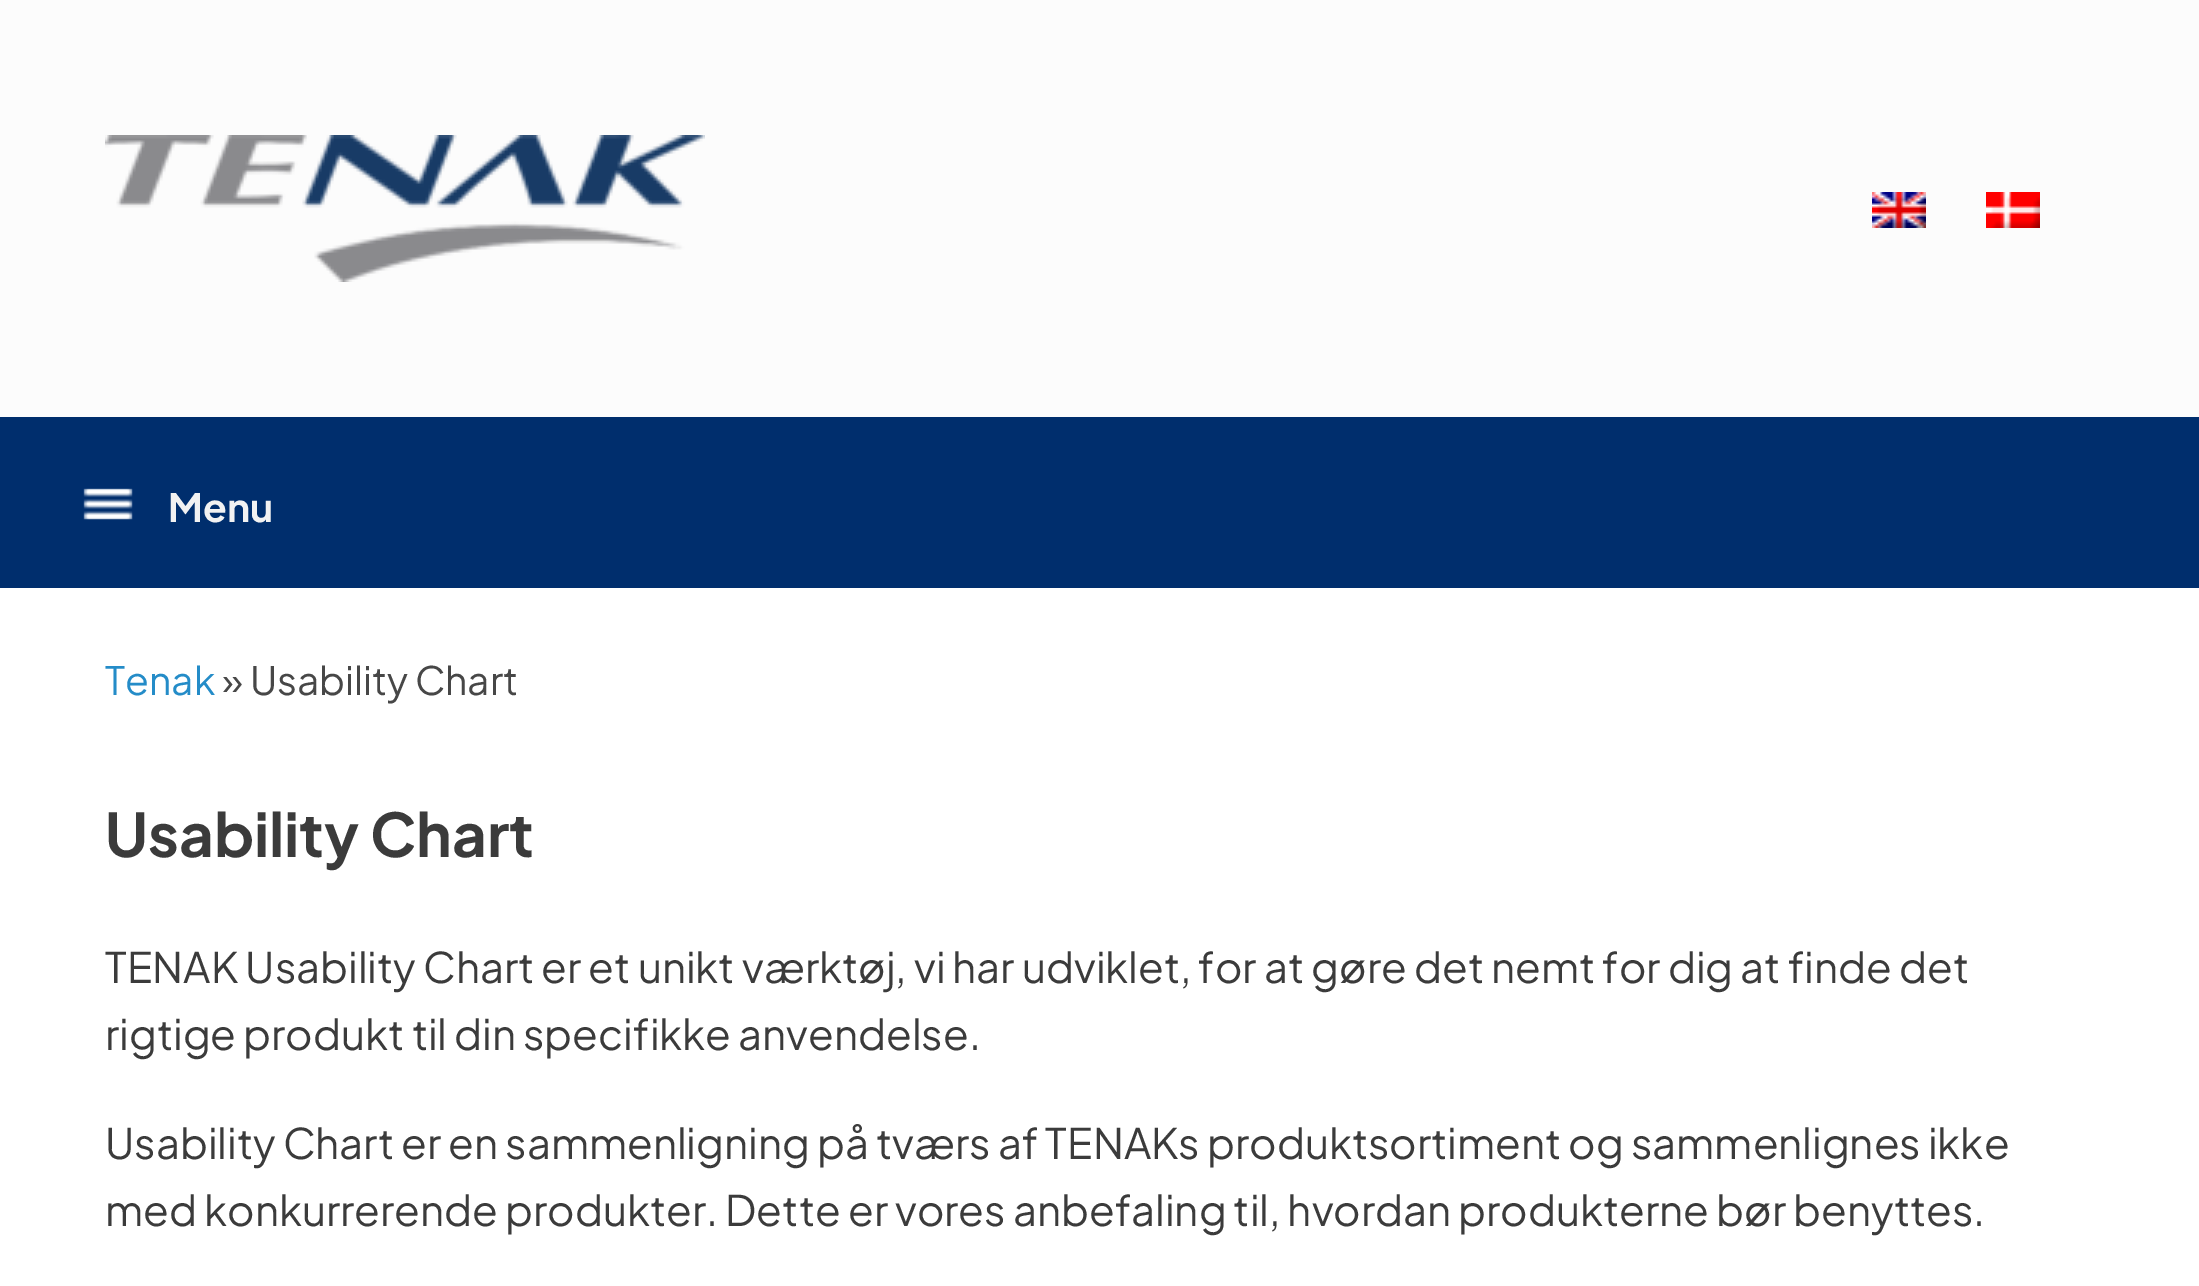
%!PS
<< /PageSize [2199 1286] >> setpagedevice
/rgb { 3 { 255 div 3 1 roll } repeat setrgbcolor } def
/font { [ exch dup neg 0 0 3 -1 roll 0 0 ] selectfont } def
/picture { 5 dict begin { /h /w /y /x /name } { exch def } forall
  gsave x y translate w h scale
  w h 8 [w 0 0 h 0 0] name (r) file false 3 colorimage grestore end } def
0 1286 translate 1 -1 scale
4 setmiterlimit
252 252 252 rgb
0 0 2199 1286 rectfill
(img/1.rgb) 105 135 600 147 picture
(img/2.rgb) 1872 192 54 36 picture
(img/3.rgb) 1986 192 54 36 picture
0 46 109 rgb
0 417 2199 171 rectfill
(img/4.rgb) 83 488 50 32 picture
255 255 255 rgb
0 588 2199 698 rectfill
/PlusJakartaSans-Bold 39 font
242 242 242 rgb
168 522 moveto (Menu) show
/PlusJakartaSans-Regular 39 font
36 140 200 rgb
105 695 moveto (Tenak) show
71 71 71 rgb
222 695 moveto (» Usability Chart) show
/PlusJakartaSans-Bold 60 font
59 59 59 rgb
105 857 moveto (Usability Chart) show
/PlusJakartaSans-Regular 42 font
[
  [(TENAK Usability Chart er et unikt værktøj, vi har udviklet, for at gøre det nemt for dig at finde det) 105 983]
  [(rigtige produkt til din specifikke anvendelse.) 105 1050]
  [(Usability Chart er en sammenligning på tværs af TENAKs produktsortiment og sammenlignes ikke) 105 1159]
  [(med konkurrerende produkter. Dette er vores anbefaling til, hvordan produkterne bør benyttes.) 105 1226]
] { aload pop moveto show } forall
showpage
